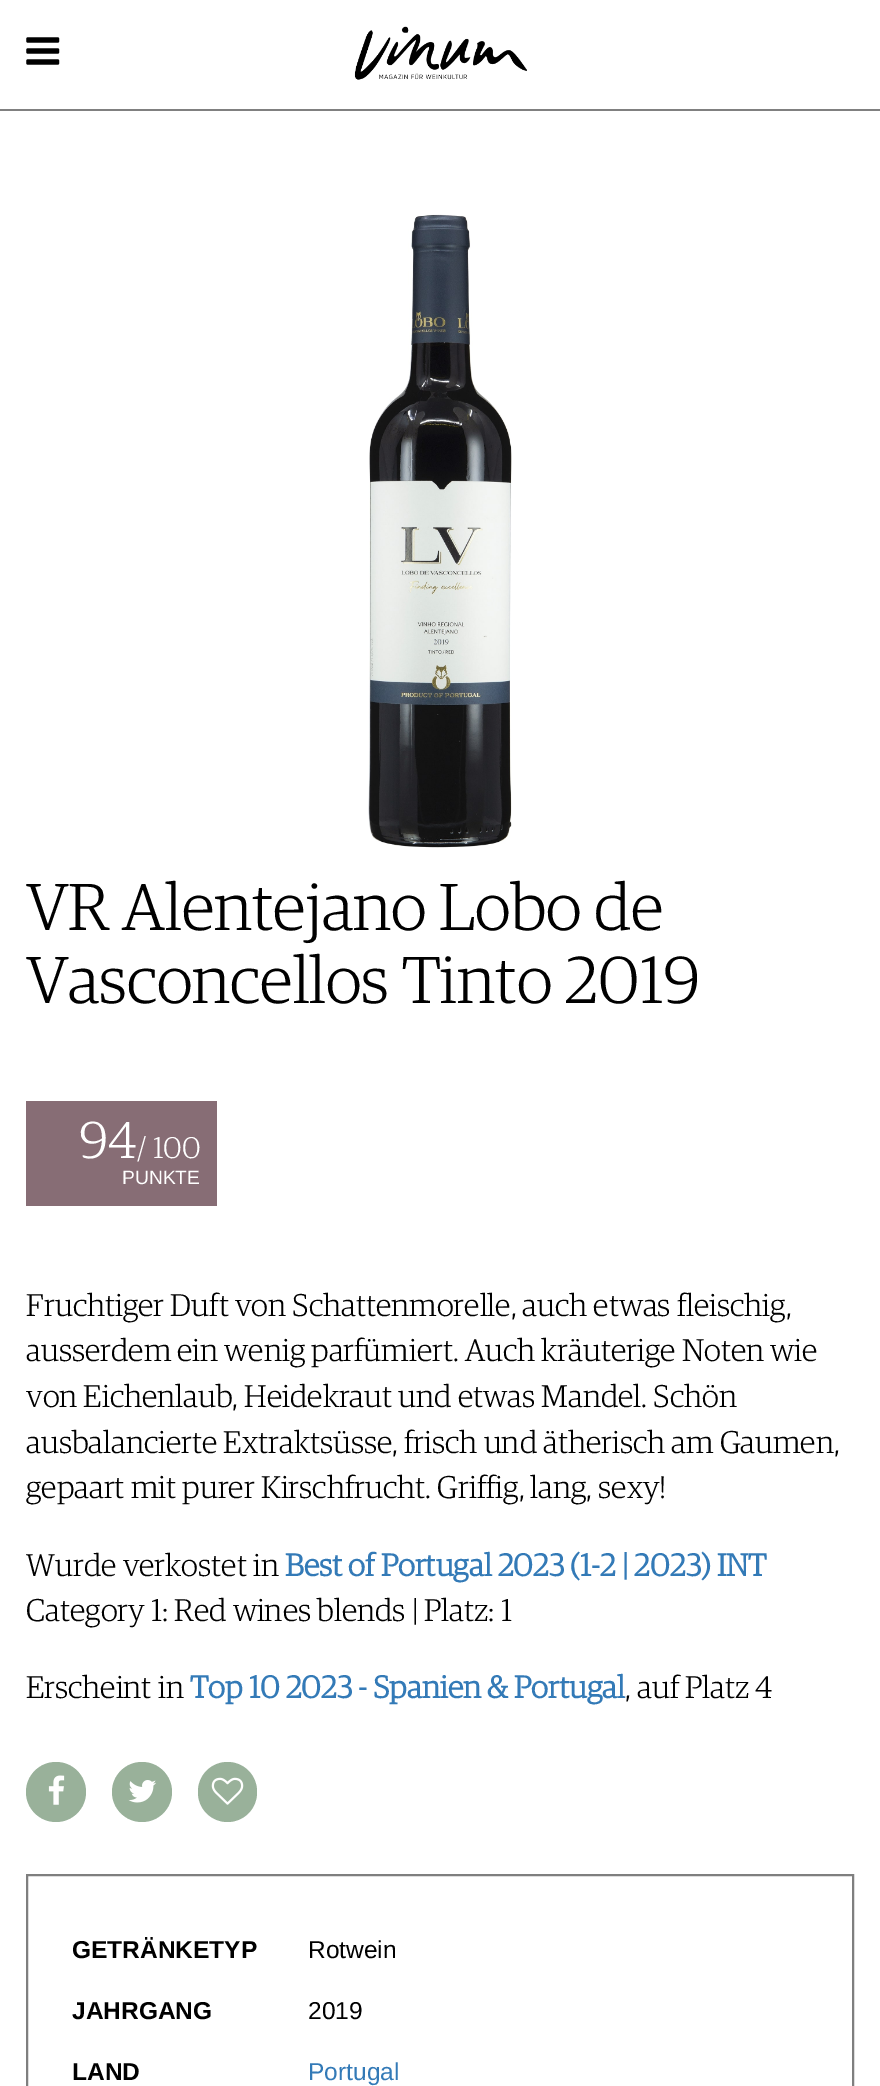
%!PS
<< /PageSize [880 2086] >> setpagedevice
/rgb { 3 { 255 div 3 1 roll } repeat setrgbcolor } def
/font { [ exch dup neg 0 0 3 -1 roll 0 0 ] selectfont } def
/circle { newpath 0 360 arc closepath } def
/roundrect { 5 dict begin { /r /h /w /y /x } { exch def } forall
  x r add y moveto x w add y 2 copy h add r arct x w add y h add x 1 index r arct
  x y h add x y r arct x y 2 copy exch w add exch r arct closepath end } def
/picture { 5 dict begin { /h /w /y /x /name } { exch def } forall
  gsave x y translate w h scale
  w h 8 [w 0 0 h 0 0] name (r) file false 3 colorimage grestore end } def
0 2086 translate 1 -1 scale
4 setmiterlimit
255 255 255 rgb
0 0 880 2086 rectfill
128 128 128 rgb
0 109 880 2 rectfill
(img/1.rgb) 26 37 34 28 picture
(img/2.rgb) 354 26 173 54 picture
(img/3.rgb) 368 214 144 634 picture
135 109 117 rgb
26 1101 191 105 rectfill
153 177 154 rgb
56 1792 30 circle fill
(img/4.rgb) 48 1775 17 30 picture
142 1792 30 circle fill
(img/5.rgb) 128 1780 28 23 picture
198 1762 59 60 29.5 roundrect fill
(img/6.rgb) 211 1777 33 28 picture
127 127 127 rgb
2 setlinewidth
27 1875 826 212 rectstroke
/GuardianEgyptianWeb-Light 66.5 font
0 0 0 rgb
26 930 moveto (VR Alentejano Lobo de) show
26 1003 moveto (Vasconcellos Tinto 2019) show
/GuardianEgyptianWeb-Light 52 font
255 255 255 rgb
79 1158 moveto (94) show
/GuardianEgyptianWeb-Light 30 font
137 1158 moveto (/ 100) show
/LiberationSans-Regular 19.25 font
122 1184 moveto (PUNKTE) show
/GuardianEgyptianWeb-Light 31.5 font
0 0 0 rgb
[
  [(Fruchtiger Duft von Schattenmorelle, auch etwas fleischig,) 26 1316]
  [(ausserdem ein wenig parfümiert. Auch kräuterige Noten wie) 26 1361]
  [(von Eichenlaub, Heidekraut und etwas Mandel. Schön) 26 1407]
  [(ausbalancierte Extraktsüsse, frisch und ätherisch am Gaumen,) 26 1453]
  [(gepaart mit purer Kirschfrucht. Griffig, lang, sexy!) 26 1498]
  [(Wurde verkostet in) 26 1576]
] { aload pop moveto show } forall
/GuardianEgyptianWeb-Bold 31.5 font
51 122 183 rgb
285 1576 moveto (Best of Portugal 2023 \(1-2 | 2023\) INT) show
/GuardianEgyptianWeb-Light 31.5 font
0 0 0 rgb
26 1621 moveto (Category 1: Red wines blends | Platz: 1) show
26 1698 moveto (Erscheint in) show
/GuardianEgyptianWeb-Bold 31.5 font
51 122 183 rgb
190 1698 moveto (Top 10 2023 - Spanien & Portugal) show
/GuardianEgyptianWeb-Light 31.5 font
0 0 0 rgb
625 1698 moveto (, auf Platz 4) show
/LiberationSans-Bold 24.5 font
72 1958 moveto (GETRÄNKETYP) show
/LiberationSans-Regular 24.5 font
308 1958 moveto (Rotwein) show
/LiberationSans-Bold 24.5 font
72 2019 moveto (JAHRGANG) show
/LiberationSans-Regular 24.5 font
308 2019 moveto (2019) show
/LiberationSans-Bold 24.5 font
72 2080 moveto (LAND) show
/LiberationSans-Regular 24.5 font
51 122 183 rgb
308 2080 moveto (Portugal) show
showpage
